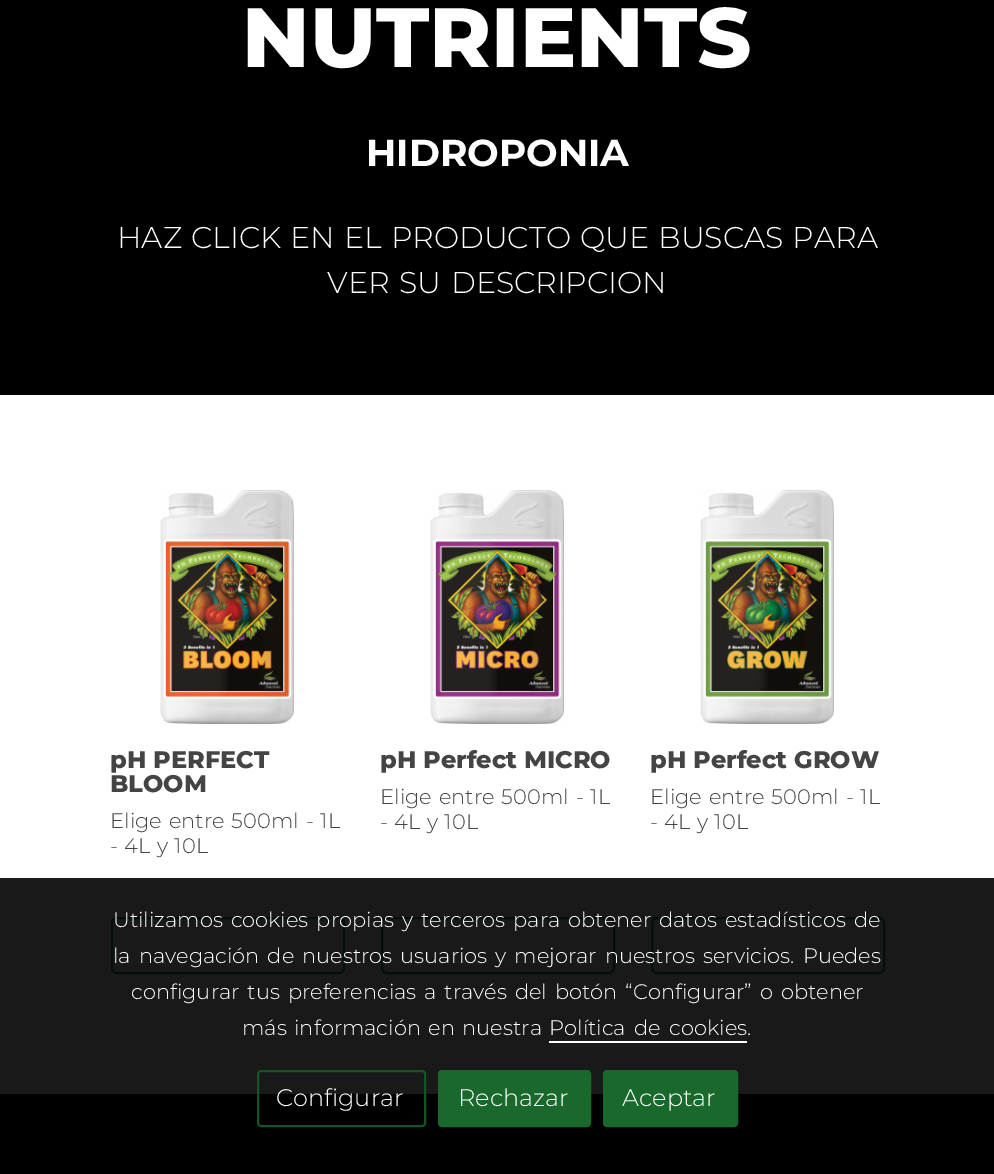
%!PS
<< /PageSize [994 1174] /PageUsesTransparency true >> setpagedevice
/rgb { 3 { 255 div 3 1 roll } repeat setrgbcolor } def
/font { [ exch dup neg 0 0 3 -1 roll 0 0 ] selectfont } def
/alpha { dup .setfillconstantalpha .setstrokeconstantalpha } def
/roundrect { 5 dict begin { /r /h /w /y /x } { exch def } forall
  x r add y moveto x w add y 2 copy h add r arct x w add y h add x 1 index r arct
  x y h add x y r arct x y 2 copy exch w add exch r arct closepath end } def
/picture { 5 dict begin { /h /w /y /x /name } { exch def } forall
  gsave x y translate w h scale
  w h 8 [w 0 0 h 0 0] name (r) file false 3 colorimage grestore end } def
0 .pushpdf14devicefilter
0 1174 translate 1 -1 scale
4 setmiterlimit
255 255 255 rgb
0 0 994 1174 rectfill
0 0 0 rgb
0 0 994 395 rectfill
(img/1.rgb) 160 490 134 234 picture
40 167 69 rgb
2 setlinewidth
112 918 232 55 5 roundrect stroke
(img/2.rgb) 430 490 134 234 picture
382 918 232 55 5 roundrect stroke
(img/3.rgb) 700 490 134 234 picture
652 918 232 55 5 roundrect stroke
[
  [0 1094 994 80 0 0 0]
] { aload pop rgb rectfill } forall
0.9 alpha
[
  [0 878 994 216 0 0 0]
] { aload pop rgb rectfill } forall
1 alpha
[
  [549 1041 198 2 255 255 255]
] { aload pop rgb rectfill } forall
20 85 35 rgb
258 1071 167 55 3 roundrect stroke
25 105 44 rgb
439 1071 151 55 3 roundrect gsave fill grestore
stroke
604 1071 133 55 3 roundrect gsave fill grestore
stroke
/Montserrat-ExtraBold 84 font
255 255 255 rgb
242 67 moveto (NUTRIENTS) show
/Montserrat-Bold 37.5 font
366 166 moveto (HIDROPONIA) show
/Montserrat-Light 30 font
117 248 moveto 1.5 0 32 (HAZ CLICK EN EL PRODUCTO QUE BUSCAS PARA) widthshow
327 293 moveto 2 0 32 (VER SU DESCRIPCION) widthshow
/Montserrat-ExtraBold 24 font
68 68 68 rgb
110 768 moveto (pH PERFECT) show
110 792 moveto (BLOOM) show
/Montserrat-Light 21 font
110 828 moveto 1.5 0 32 (Elige entre 500ml - 1L) widthshow
110 853 moveto 1 0 32 (- 4L y 10L) widthshow
/Montserrat-ExtraBold 24 font
380 768 moveto (pH Perfect MICRO) show
/Montserrat-Light 21 font
380 804 moveto 1.5 0 32 (Elige entre 500ml - 1L) widthshow
380 829 moveto 1 0 32 (- 4L y 10L) widthshow
/Montserrat-ExtraBold 24 font
650 768 moveto (pH Perfect GROW) show
/Montserrat-Light 21 font
650 804 moveto 1.5 0 32 (Elige entre 500ml - 1L) widthshow
650 829 moveto 1 0 32 (- 4L y 10L) widthshow
255 255 255 rgb
113 927 moveto 2.5 0 32 (Utilizamos cookies propias y terceros para obtener datos estadísticos de) widthshow
113 963 moveto 2.5 0 32 (la navegación de nuestros usuarios y mejorar nuestros servicios. Puedes) widthshow
131 999 moveto 2.5 0 32 (configurar tus preferencias a través del botón “Configurar” o obtener) widthshow
242 1035 moveto 2 0 32 (más información en nuestra) widthshow
549 1035 moveto 3 0 32 (Política de cookies) widthshow
747 1035 moveto (.) show
/Montserrat-Light 24 font
[
  [(Configurar) 276 1106]
  [(Rechazar) 458 1106]
  [(Aceptar) 622 1106]
] { aload pop moveto show } forall
.poppdf14devicefilter showpage
